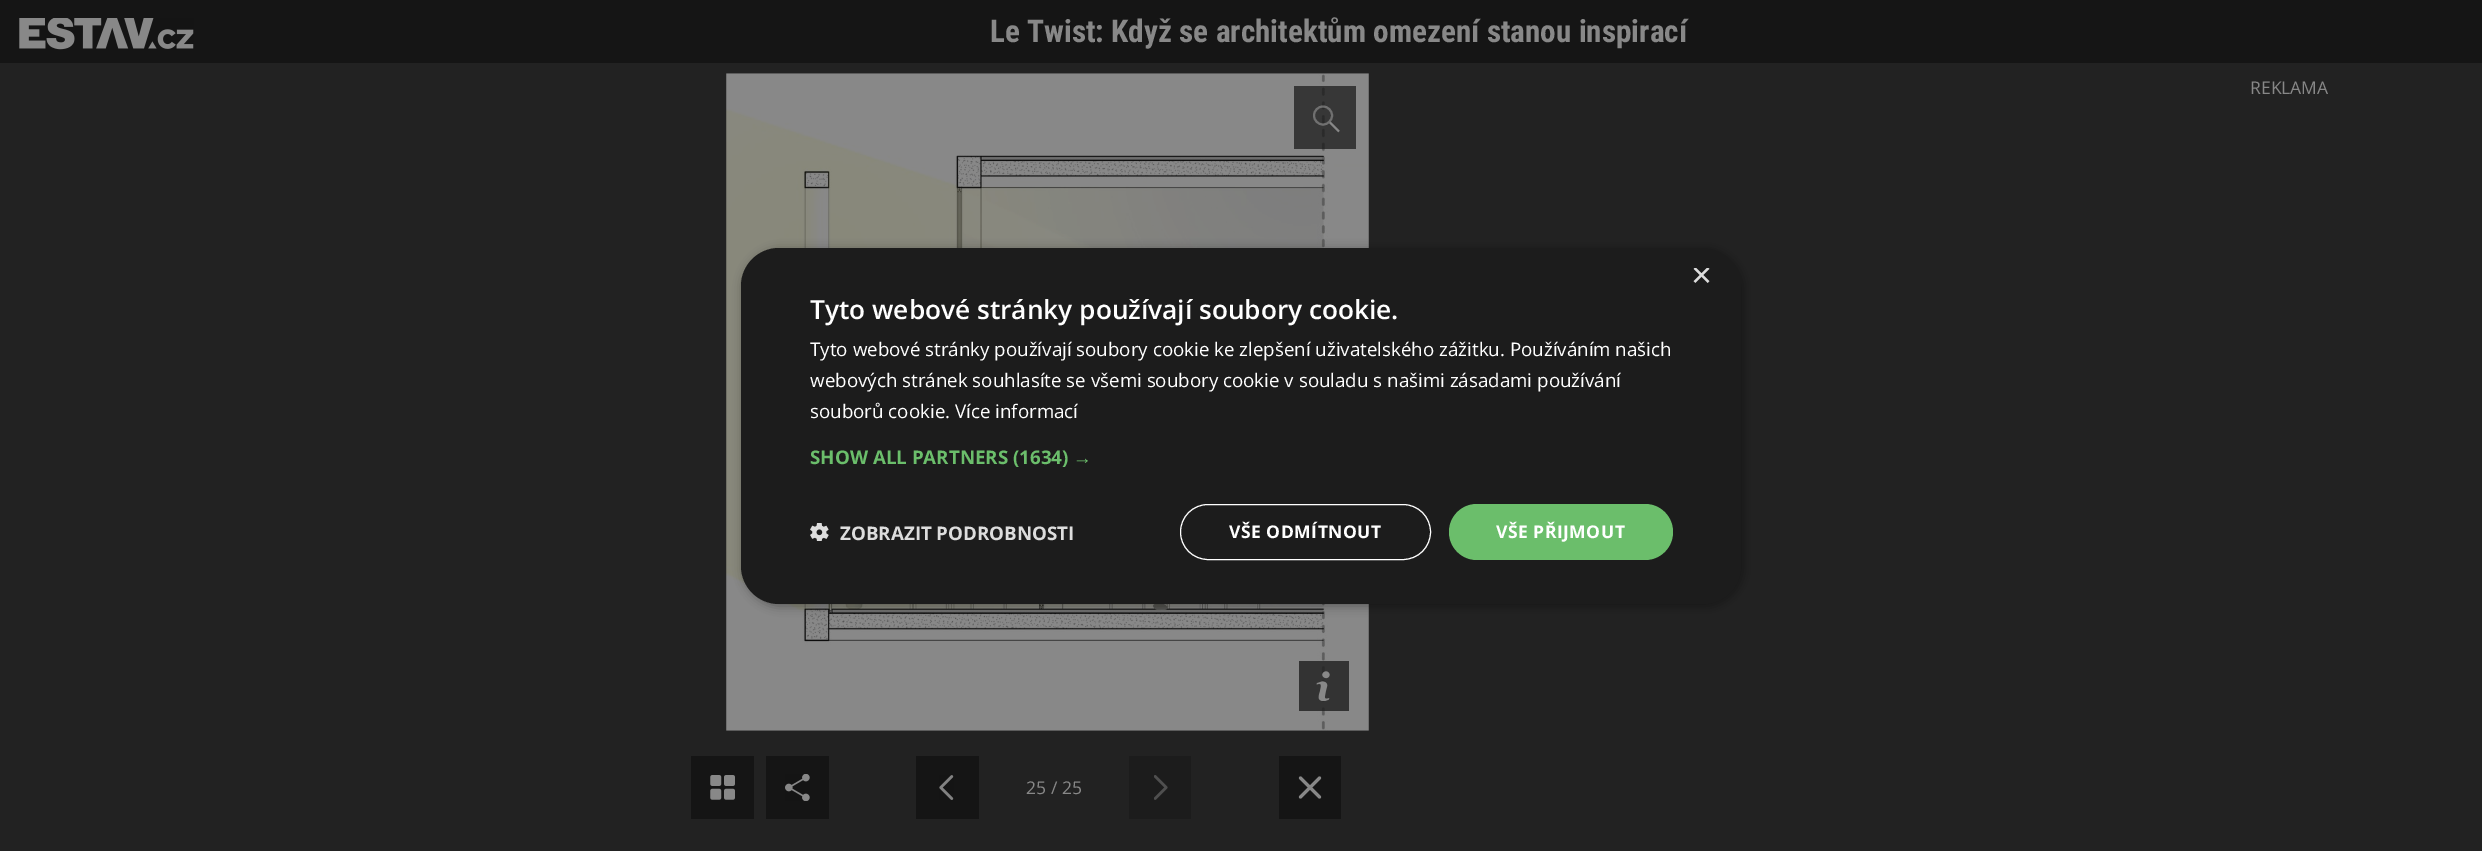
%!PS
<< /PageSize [2482 851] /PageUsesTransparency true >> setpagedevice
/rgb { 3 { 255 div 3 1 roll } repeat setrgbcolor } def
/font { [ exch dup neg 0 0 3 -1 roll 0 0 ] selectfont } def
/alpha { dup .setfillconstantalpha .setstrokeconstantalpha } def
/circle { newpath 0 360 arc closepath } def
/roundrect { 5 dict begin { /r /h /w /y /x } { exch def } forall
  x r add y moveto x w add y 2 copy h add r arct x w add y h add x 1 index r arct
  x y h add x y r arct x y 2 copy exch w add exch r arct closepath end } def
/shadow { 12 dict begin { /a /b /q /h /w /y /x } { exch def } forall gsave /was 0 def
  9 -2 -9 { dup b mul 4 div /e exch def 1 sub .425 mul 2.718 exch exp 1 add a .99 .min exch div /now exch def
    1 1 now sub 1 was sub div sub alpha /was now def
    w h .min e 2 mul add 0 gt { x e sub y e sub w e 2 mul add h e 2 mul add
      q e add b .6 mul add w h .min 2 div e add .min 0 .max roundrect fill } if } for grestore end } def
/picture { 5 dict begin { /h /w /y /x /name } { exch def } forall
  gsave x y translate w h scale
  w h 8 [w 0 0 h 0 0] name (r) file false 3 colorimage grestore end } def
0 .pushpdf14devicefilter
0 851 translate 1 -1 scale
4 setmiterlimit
34 34 34 rgb
0 0 2482 851 rectfill
21 21 21 rgb
0 0 2482 63 rectfill
(img/1.rgb) 19 18 175 32 picture
(img/2.rgb) 726 73 643 658 picture
0.7 alpha
1294 86 62 63 rectfill
136 136 136 rgb
2 setlinewidth
1323 115.5 9 circle stroke
1 alpha
1330 122.5 moveto 1339 131.5 lineto stroke
0.8 alpha
30 30 30 rgb
1299 661 50 50 rectfill
1 alpha
(img/3.rgb) 1316 671 14 30 picture
21 21 21 rgb
691 756 63 63 rectfill
(img/4.rgb) 710 775 25 25 picture
766 756 63 63 rectfill
(img/5.rgb) 785 774 25 27 picture
916 756 63 63 rectfill
(img/6.rgb) 939 775 15 25 picture
28 28 28 rgb
1129 756 62 63 rectfill
(img/7.rgb) 1154 775 14 25 picture
21 21 21 rgb
1279 756 62 63 rectfill
136 136 136 rgb
3.1 setlinewidth
1 setlinecap
1300.5 778 moveto 1319.5 797 lineto 1319.5 778 moveto 1300.5 797 lineto stroke
0 0 0 rgb
743 250 1000 356 38 5 0.35 shadow
28 28 28 rgb
741 248 1000 356 38 roundrect fill
(img/8.rgb) 810 523 19 18 picture
255 255 255 rgb
1 setlinewidth
0 setlinecap
1180.5 504.5 250 55 27.5 roundrect stroke
107 190 107 rgb
1449 504 224 56 28 roundrect fill
/RobotoCondensed-Bold 31.25 font
136 136 136 rgb
990 42 moveto (Le Twist: Když se architektům omezení stanou inspirací) show
/OpenSans-Regular 17.5 font
2250 94 moveto (REKLAMA) show
1026 794 moveto (25 / 25) show
gsave
1691 268 19 18 rectclip
/LiberationSans-Regular 36 font
221 221 221 rgb
1691 287 moveto (×) show
grestore
/OpenSans-SemiBold 26.25 font
255 255 255 rgb
810 319 moveto (Tyto webové stránky používají soubory cookie.) show
/OpenSans-Regular 18.75 font
[
  [(Tyto webové stránky používají soubory cookie ke zlepšení uživatelského zážitku. Používáním našich) 810 356]
  [(webových stránek souhlasíte se všemi soubory cookie v souladu s našimi zásadami používání) 810 387]
  [(souborů cookie. Více informací) 810 418]
] { aload pop moveto show } forall
/OpenSans-Bold 18.75 font
107 190 107 rgb
810 464 moveto (SHOW ALL PARTNERS \(1634\)) show
/LiberationSans-Bold 18.75 font
1073 464 moveto (→) show
/OpenSans-Bold 18.75 font
221 221 221 rgb
840 540 moveto (ZOBRAZIT PODROBNOSTI) show
/OpenSans-Bold 17.5 font
255 255 255 rgb
1229 538 moveto 0.5 0 (VŠE ODMÍTNOUT) ashow
1496 538 moveto 0.5 0 (VŠE PŘIJMOUT) ashow
.poppdf14devicefilter showpage
